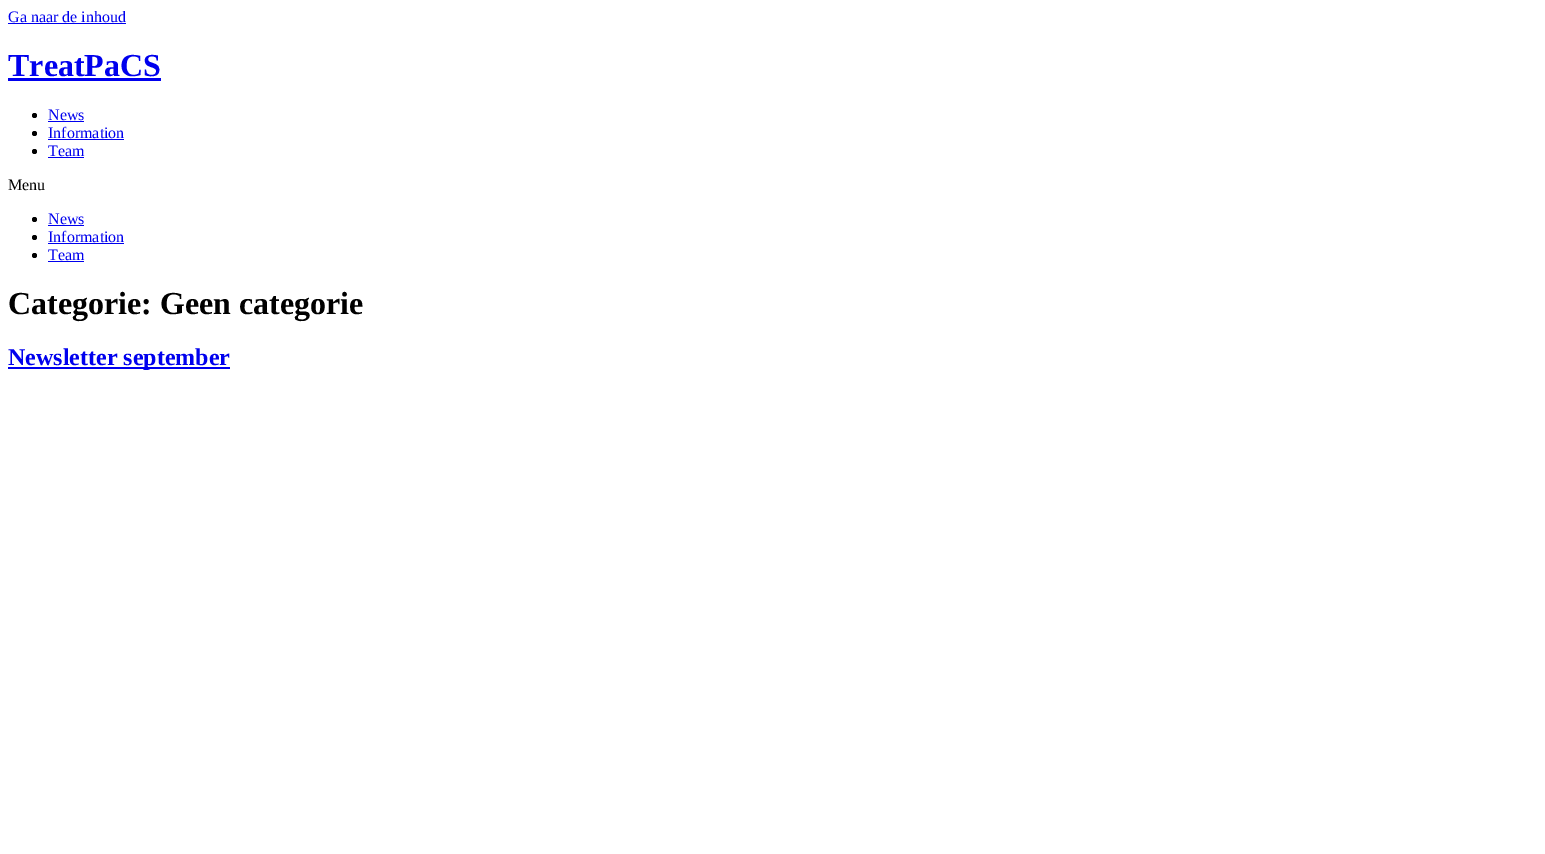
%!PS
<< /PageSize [1545 854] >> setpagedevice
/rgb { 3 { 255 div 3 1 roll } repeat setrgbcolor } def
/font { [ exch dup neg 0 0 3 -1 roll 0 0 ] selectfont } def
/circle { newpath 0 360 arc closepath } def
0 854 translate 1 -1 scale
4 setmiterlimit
255 255 255 rgb
0 0 1545 854 rectfill
0 0 238 rgb
8 23 118 1 rectfill
8 78 153 3 rectfill
0 0 0 rgb
34.5 115.5 2.5 circle fill
0 0 238 rgb
48 121 36 1 rectfill
0 0 0 rgb
34.5 133.5 2.5 circle fill
0 0 238 rgb
48 139 76 1 rectfill
0 0 0 rgb
34.5 151.5 2.5 circle fill
0 0 238 rgb
48 157 36 1 rectfill
0 0 0 rgb
34.5 219.5 2.5 circle fill
0 0 238 rgb
48 225 36 1 rectfill
0 0 0 rgb
34.5 237.5 2.5 circle fill
0 0 238 rgb
48 243 76 1 rectfill
0 0 0 rgb
34.5 255.5 2.5 circle fill
0 0 238 rgb
48 261 36 1 rectfill
8 367 222 2 rectfill
/LiberationSerif-Regular 16 font
8 22 moveto (Ga naar de inhoud) show
/LiberationSerif-Bold 32 font
8 76 moveto (TreatPaCS) show
/LiberationSerif-Regular 16 font
[
  [(News) 48 120]
  [(Information) 48 138]
  [(Team) 48 156]
] { aload pop moveto show } forall
0 0 0 rgb
8 190 moveto (Menu) show
0 0 238 rgb
[
  [(News) 48 224]
  [(Information) 48 242]
  [(Team) 48 260]
] { aload pop moveto show } forall
/LiberationSerif-Bold 32 font
0 0 0 rgb
8 314 moveto (Categorie: Geen categorie) show
/LiberationSerif-Bold 24 font
0 0 238 rgb
8 365 moveto (Newsletter september) show
showpage
